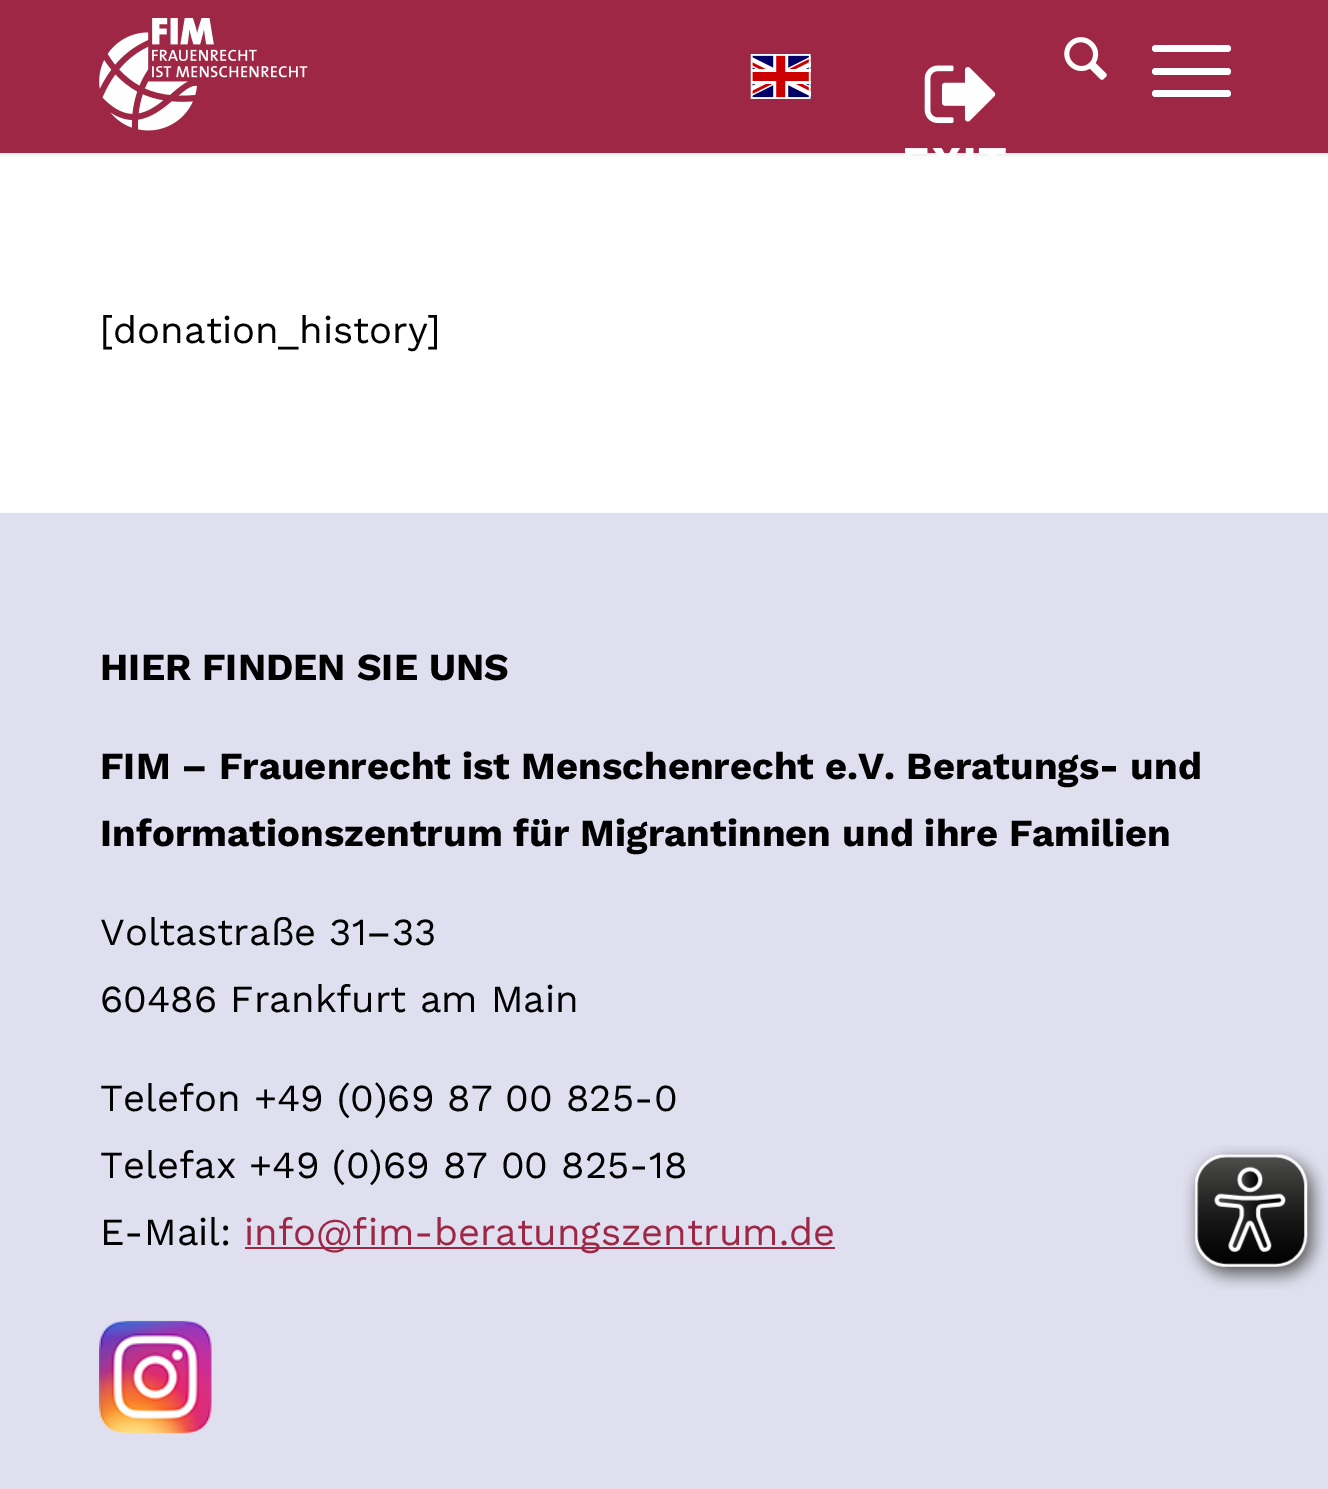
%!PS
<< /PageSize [1328 1489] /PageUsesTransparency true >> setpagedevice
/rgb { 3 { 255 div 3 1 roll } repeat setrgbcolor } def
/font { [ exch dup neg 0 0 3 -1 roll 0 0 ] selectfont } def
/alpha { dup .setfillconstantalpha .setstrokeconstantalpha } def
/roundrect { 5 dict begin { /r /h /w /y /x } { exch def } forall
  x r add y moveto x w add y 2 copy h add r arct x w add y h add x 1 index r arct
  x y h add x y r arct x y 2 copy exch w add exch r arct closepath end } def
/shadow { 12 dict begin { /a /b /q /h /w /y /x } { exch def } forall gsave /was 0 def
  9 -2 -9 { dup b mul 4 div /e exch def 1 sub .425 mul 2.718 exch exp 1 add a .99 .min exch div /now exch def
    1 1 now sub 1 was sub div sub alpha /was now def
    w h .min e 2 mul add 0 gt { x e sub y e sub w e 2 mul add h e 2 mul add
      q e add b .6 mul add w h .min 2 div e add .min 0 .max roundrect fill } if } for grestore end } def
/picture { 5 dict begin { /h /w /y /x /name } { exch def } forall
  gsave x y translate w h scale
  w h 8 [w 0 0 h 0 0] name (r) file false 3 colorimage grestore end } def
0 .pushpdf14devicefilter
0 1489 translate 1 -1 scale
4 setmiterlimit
255 255 255 rgb
0 0 1328 1489 rectfill
0 0 0 rgb
-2 -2 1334 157 0 2 0.1 shadow
158 39 69 rgb
0 0 1328 153 rectfill
(img/1.rgb) 99 18 209 113 picture
(img/2.rgb) 750 54 61 45 picture
(img/3.rgb) 905 65 101 92 picture
(img/4.rgb) 1064 37 43 43 picture
255 255 255 rgb
1152 68 79 7 3.5 roundrect fill
1152 45 79 7 3.5 roundrect fill
1152 90 79 7 3.5 roundrect fill
223 223 239 rgb
0 513 1328 976 rectfill
158 39 69 rgb
245 1247 590 2 rectfill
(img/5.rgb) 99 1320 113 114 picture
(img/6.rgb) 1183 1145 145 145 picture
/WorkSans-Regular 38.25 font
0 0 0 rgb
100 343 moveto ([donation_history]) show
/WorkSans-Bold 38.25 font
[
  [(HIER FINDEN SIE UNS) 100 680]
  [(FIM – Frauenrecht ist Menschenrecht e.V. Beratungs- und) 100 779]
  [(Informationszentrum für Migrantinnen und ihre Familien) 100 846]
] { aload pop moveto show } forall
/WorkSans-Regular 38.25 font
[
  [(Voltastraße 31–33) 100 945]
  [(60486 Frankfurt am Main) 100 1012]
  [(Telefon +49 \(0\)69 87 00 825-0) 100 1111]
  [(Telefax +49 \(0\)69 87 00 825-18) 100 1178]
  [(E-Mail:) 100 1245]
] { aload pop moveto show } forall
158 39 69 rgb
244 1245 moveto (info@fim-beratungszentrum.de) show
.poppdf14devicefilter showpage
